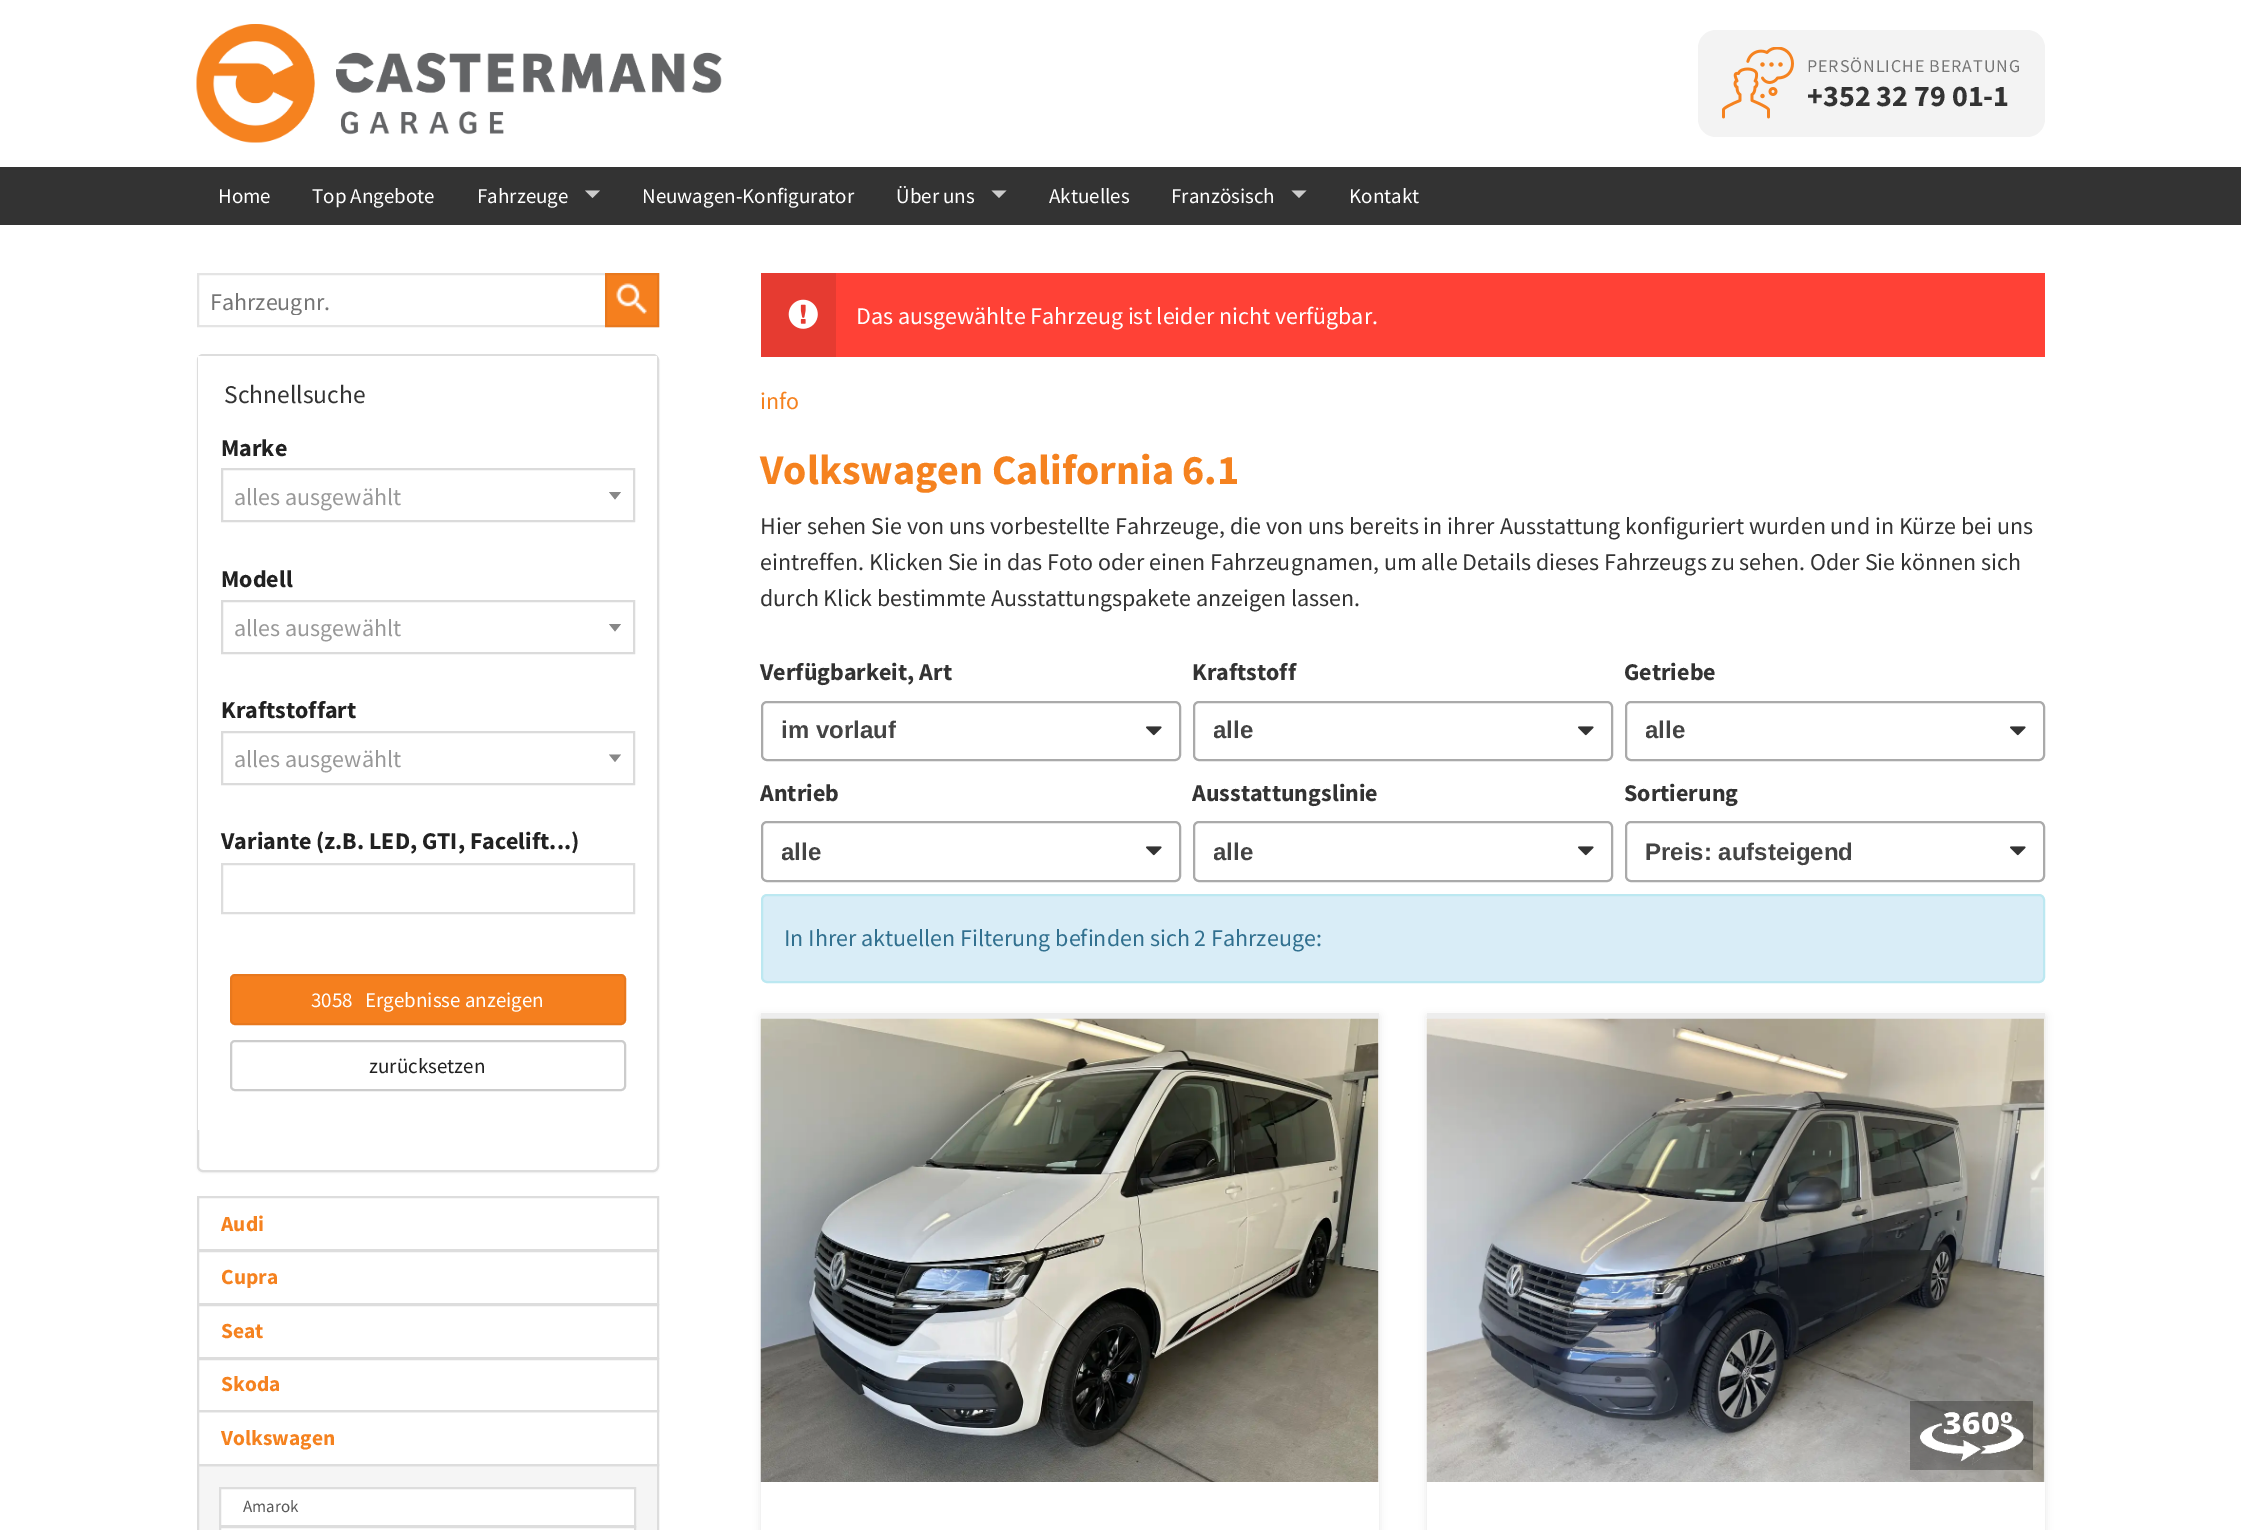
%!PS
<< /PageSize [2241 1530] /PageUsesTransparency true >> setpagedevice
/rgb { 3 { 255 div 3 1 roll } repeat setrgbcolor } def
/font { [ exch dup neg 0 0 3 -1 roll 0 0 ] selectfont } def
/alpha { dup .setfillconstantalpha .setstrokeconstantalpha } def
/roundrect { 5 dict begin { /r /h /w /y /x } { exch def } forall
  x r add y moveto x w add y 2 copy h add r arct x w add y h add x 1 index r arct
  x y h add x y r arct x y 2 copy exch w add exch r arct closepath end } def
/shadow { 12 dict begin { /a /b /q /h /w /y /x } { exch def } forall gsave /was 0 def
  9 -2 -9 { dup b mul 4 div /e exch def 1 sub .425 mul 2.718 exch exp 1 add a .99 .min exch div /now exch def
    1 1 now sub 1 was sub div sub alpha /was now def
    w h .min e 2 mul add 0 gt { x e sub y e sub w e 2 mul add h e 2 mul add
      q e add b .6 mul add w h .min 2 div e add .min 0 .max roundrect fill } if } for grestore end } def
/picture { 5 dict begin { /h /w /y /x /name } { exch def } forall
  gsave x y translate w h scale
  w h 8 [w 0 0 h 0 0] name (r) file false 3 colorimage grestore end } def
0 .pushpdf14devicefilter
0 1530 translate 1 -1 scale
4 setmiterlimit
255 255 255 rgb
0 0 2241 1530 rectfill
(img/1.rgb) 196 24 526 119 picture
243 243 243 rgb
1698 30 347 107 18 roundrect fill
(img/2.rgb) 1722 47 72 72 picture
51 51 51 rgb
0 167 2241 58 rectfill
204 204 204 rgb
585 190.5 moveto 600 190.5 lineto 592.5 198 lineto closepath fill
991.5 190.5 moveto 1006.5 190.5 lineto 999 198 lineto closepath fill
1291.5 190.5 moveto 1306.5 190.5 lineto 1299 198 lineto closepath fill
228 228 228 rgb
2 setlinewidth
198 274 460 52 rectstroke
245 127 30 rgb
607 275 50 50 rectfill
(img/3.rgb) 616 283 31 31 picture
232 120 29 rgb
606 274 52 52 rectstroke
0 0 0 rgb
197 356 462 817 6 1 0.05 shadow
255 255 255 rgb
198 355 460 816 5 roundrect gsave fill grestore
221 221 221 rgb
stroke
255 255 255 rgb
198 356 459 774 rectfill
219 219 219 rgb
222 469 412 52 rectstroke
136 136 136 rgb
609 492 moveto 621 492 lineto 615 499.5 lineto closepath fill
219 219 219 rgb
222 601 412 52 rectstroke
136 136 136 rgb
609 624 moveto 621 624 lineto 615 631.5 lineto closepath fill
219 219 219 rgb
222 732 412 52 rectstroke
136 136 136 rgb
609 754.5 moveto 621 754.5 lineto 615 762 lineto closepath fill
221 221 221 rgb
222 864 412 49 rectstroke
245 127 30 rgb
231 975 394 49 4 roundrect gsave fill grestore
232 120 29 rgb
stroke
204 204 204 rgb
231 1041 394 49 4 roundrect stroke
221 221 221 rgb
198 1197 460 53 rectstroke
198 1251 460 53 rectstroke
198 1305 460 53 rectstroke
198 1359 460 52 rectstroke
245 245 245 rgb
198 1465 moveto 658 1465 lineto 658 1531 lineto 198 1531 lineto closepath gsave fill grestore
221 221 221 rgb
stroke
198 1411 460 54 rectstroke
255 255 255 rgb
220 1488 moveto 635 1488 lineto 635 1526 lineto 220 1526 lineto closepath gsave fill grestore
221 221 221 rgb
stroke
255 255 255 rgb
220 1527 moveto 635 1527 lineto 635 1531 lineto 220 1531 lineto closepath gsave fill grestore
221 221 221 rgb
stroke
255 65 54 rgb
836 273 1209 84 rectfill
230 59 49 rgb
761 273 75 84 rectfill
(img/4.rgb) 788 299 30 30 picture
(img/5.rgb) 1146 726 16 10 picture
170 170 170 rgb
762 702 418 58 5 roundrect stroke
(img/5.rgb) 1578 726 16 10 picture
1194 702 418 58 5 roundrect stroke
(img/5.rgb) 2010 726 16 10 picture
1626 702 418 58 5 roundrect stroke
(img/5.rgb) 1146 846 16 10 picture
762 822 418 59 5 roundrect stroke
(img/5.rgb) 1578 846 16 10 picture
1194 822 418 59 5 roundrect stroke
(img/5.rgb) 2010 846 16 10 picture
1626 822 418 59 5 roundrect stroke
217 237 247 rgb
762 895 1282 87 5 roundrect gsave fill grestore
188 232 241 rgb
stroke
0 0 0 rgb
761 1016 618 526 0 4 0.1 shadow
255 255 255 rgb
761 1019 618 511 rectfill
237 237 237 rgb
761 1013 618 6 rectfill
(img/6.rgb) 760 1018 619 464 picture
0 0 0 rgb
1427 1016 618 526 0 4 0.1 shadow
255 255 255 rgb
1427 1019 618 511 rectfill
237 237 237 rgb
1427 1013 618 6 rectfill
(img/7.rgb) 1426 1018 619 464 picture
0.28 alpha
0 0 0 rgb
1910 1401 123 69 rectfill
1 alpha
(img/8.rgb) 1920 1412 107 53 picture
/SourceSansPro-Regular 18 font
117 117 117 rgb
1807 72 moveto 0.9 0 (PERSÖNLICHE BERATUNG) ashow
/SourceSansPro-Bold 30 font
51 51 51 rgb
1807 106 moveto (+352 32 79 01-1) show
/SourceSansPro-Regular 21 font
255 255 255 rgb
[
  [(Home) 218 203]
  [(Top Angebote) 312 203]
  [(Fahrzeuge) 477 203]
  [(Neuwagen-Konfigurator) 642 203]
  [(Über uns) 896 203]
  [(Aktuelles) 1049 203]
  [(Französisch) 1171 203]
  [(Kontakt) 1349 203]
] { aload pop moveto show } forall
gsave
210 285 435 30 rectclip
/SourceSansPro-Regular 24 font
117 117 117 rgb
210 310 moveto (Fahrzeugnr.) show
grestore
/SourceSansPro-Regular 25.5 font
51 51 51 rgb
224 403 moveto (Schnellsuche) show
/SourceSansPro-Bold 24 font
33 33 33 rgb
221 456 moveto (Marke) show
/SourceSansPro-Regular 24 font
153 153 153 rgb
234 505 moveto (alles ausgewählt) show
/SourceSansPro-Bold 24 font
33 33 33 rgb
221 587 moveto (Modell) show
/SourceSansPro-Regular 24 font
153 153 153 rgb
234 636 moveto (alles ausgewählt) show
/SourceSansPro-Bold 24 font
33 33 33 rgb
221 718 moveto (Kraftstoffart) show
/SourceSansPro-Regular 24 font
153 153 153 rgb
234 767 moveto (alles ausgewählt) show
/SourceSansPro-Bold 24 font
33 33 33 rgb
221 849 moveto (Variante \(z.B. LED, GTI, Facelift...\)) show
/SourceSansPro-Regular 21 font
255 255 255 rgb
311 1007 moveto (3058) show
365 1007 moveto (Ergebnisse anzeigen) show
33 33 33 rgb
369 1073 moveto (zurücksetzen) show
/SourceSansPro-Bold 21.5 font
245 130 31 rgb
[
  [(Audi) 221 1231]
  [(Cupra) 221 1284]
  [(Seat) 221 1338]
  [(Skoda) 221 1391]
  [(Volkswagen) 221 1445]
] { aload pop moveto show } forall
/SourceSansPro-Regular 17 font
85 85 85 rgb
243 1512 moveto (Amarok) show
/SourceSansPro-Regular 24 font
255 255 255 rgb
856 324 moveto (Das ausgewählte Fahrzeug ist leider nicht verfügbar.) show
245 130 31 rgb
760 409 moveto (info) show
/SourceSansPro-Bold 42 font
760 484 moveto (Volkswagen California 6.1) show
/SourceSansPro-Regular 24 font
51 51 51 rgb
[
  [(Hier sehen Sie von uns vorbestellte Fahrzeuge, die von uns bereits in ihrer Ausstattung konfiguriert wurden und in Kürze bei uns) 760 534]
  [(eintreffen. Klicken Sie in das Foto oder einen Fahrzeugnamen, um alle Details dieses Fahrzeugs zu sehen. Oder Sie können sich) 760 570]
  [(durch Klick bestimmte Ausstattungspakete anzeigen lassen.) 760 606]
] { aload pop moveto show } forall
/SourceSansPro-Bold 24 font
760 680 moveto (Verfügbarkeit, Art) show
/LiberationSans-Bold 24 font
68 68 68 rgb
781 738 moveto (im vorlauf) show
/SourceSansPro-Bold 24 font
51 51 51 rgb
1192 680 moveto (Kraftstoff) show
gsave
1214 716 363 31 rectclip
/LiberationSans-Bold 24 font
68 68 68 rgb
1213 738 moveto (alle) show
grestore
1624 680 moveto (Getriebe) show
gsave
1646 716 364 31 rectclip
/LiberationSans-Bold 24 font
68 68 68 rgb
1645 738 moveto (alle) show
grestore
760 801 moveto (Antrieb) show
gsave
782 837 363 32 rectclip
/LiberationSans-Bold 24 font
68 68 68 rgb
781 860 moveto (alle) show
grestore
1192 801 moveto (Ausstattungslinie) show
gsave
1214 837 363 32 rectclip
/LiberationSans-Bold 24 font
68 68 68 rgb
1213 860 moveto (alle) show
grestore
1624 801 moveto (Sortierung) show
/LiberationSans-Bold 24 font
68 68 68 rgb
1645 860 moveto (Preis: aufsteigend) show
/SourceSansPro-Regular 24 font
49 112 143 rgb
784 946 moveto (In Ihrer aktuellen Filterung befinden sich 2 Fahrzeuge:) show
.poppdf14devicefilter showpage
